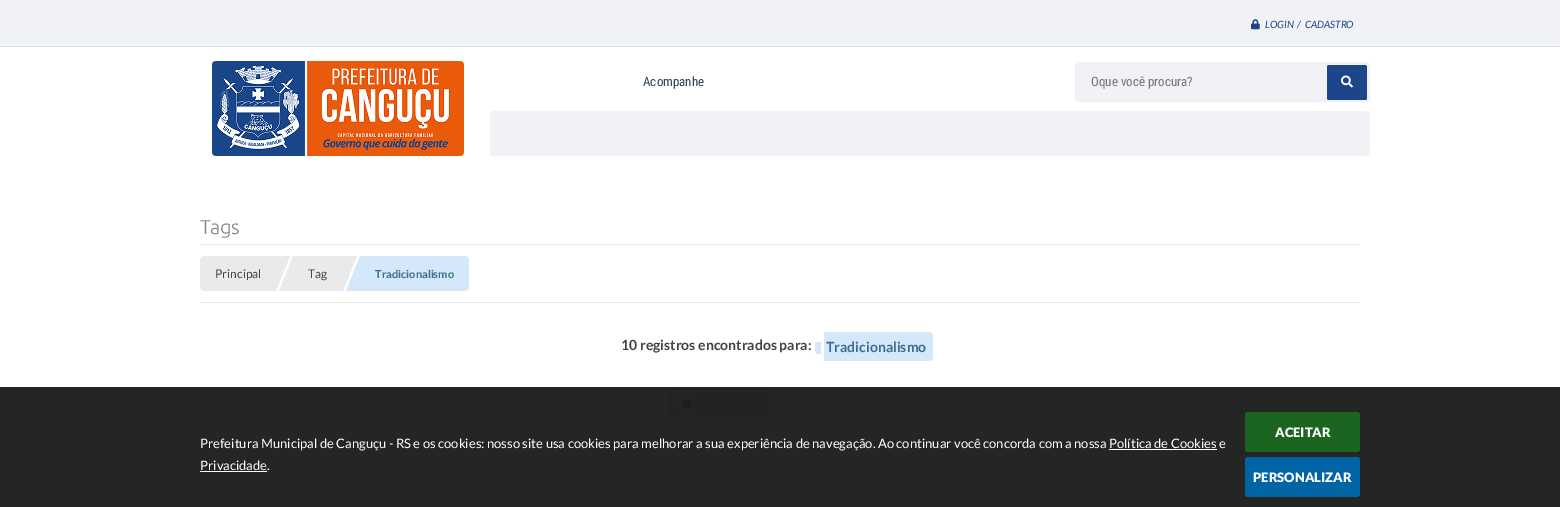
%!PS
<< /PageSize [1560 507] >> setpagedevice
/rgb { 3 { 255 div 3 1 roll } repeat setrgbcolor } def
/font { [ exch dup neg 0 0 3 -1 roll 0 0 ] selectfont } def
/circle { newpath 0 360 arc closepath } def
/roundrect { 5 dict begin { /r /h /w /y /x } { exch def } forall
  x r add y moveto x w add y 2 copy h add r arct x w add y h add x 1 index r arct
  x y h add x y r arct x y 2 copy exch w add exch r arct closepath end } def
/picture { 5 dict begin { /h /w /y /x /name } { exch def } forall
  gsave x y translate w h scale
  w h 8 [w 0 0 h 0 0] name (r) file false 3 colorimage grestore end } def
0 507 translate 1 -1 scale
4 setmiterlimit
255 255 255 rgb
0 0 1560 507 rectfill
[
  [0 387 1560 120 37 37 37]
  [0 0 1560 46 240 242 245]
  [0 46 1560 1 218 223 230]
] { aload pop rgb rectfill } forall
(img/1.rgb) 1251 19 9 11 picture
(img/2.rgb) 212 61 252 95 picture
240 242 245 rgb
1075.5 62.5 294 39 3.5 roundrect gsave fill grestore
stroke
28 70 137 rgb
1327 65 40 35 2 roundrect fill
(img/3.rgb) 1341 75 12 13 picture
240 242 245 rgb
490 111 880 45 4 roundrect fill
255 255 255 rgb
1109 449 108 1 rectfill
200 471 67 1 rectfill
27 101 32 rgb
1245 412 115 40 3 roundrect fill
1 100 164 rgb
1245 457 115 40 3 roundrect fill
233 233 233 rgb
200 244 1160 1 rectfill
200 302 1160 1 rectfill
233 234 236 rgb
205 256 moveto 276 256 lineto 276 291 lineto 205 291 lineto 202 291 200 289 200 286 curveto 200 261 lineto 200 258 202 256 205 256 curveto closepath fill
276 256 moveto 290 256 lineto 276 291 lineto closepath fill
293 256 50 35 rectfill
293 291 moveto 279 291 lineto 293 256 lineto closepath fill
343 256 moveto 357 256 lineto 343 291 lineto closepath fill
212 232 249 rgb
360 256 moveto 464 256 lineto 467 256 469 258 469 261 curveto 469 286 lineto 469 289 467 291 464 291 curveto 360 291 lineto closepath fill
360 291 moveto 346 291 lineto 360 256 lineto closepath fill
818 342 moveto 821 342 lineto 821 354 lineto 818 354 lineto 816.5 354 815 352.5 815 351 curveto 815 345 lineto 815 343.5 816.5 342 818 342 curveto closepath fill
824 332 moveto 929 332 lineto 931 332 933 334 933 336 curveto 933 357 lineto 933 359 931 361 929 361 curveto 824 361 lineto closepath fill
34 35 36 rgb
668 387 102 31 4 roundrect fill
37 37 37 rgb
686 403 8 circle fill
27 29 31 rgb
687 404 5 circle fill
/Lato-Italic 10 font
28 70 137 rgb
1265 28 moveto (LOGIN  /  CADASTRO) show
/RobotoCondensed-Regular 13 font
42 69 88 rgb
643 86 moveto (Acompanhe) show
117 117 117 rgb
1091 86 moveto (Oque você procura?) show
/Lato-Regular 13 font
255 255 255 rgb
200 448 moveto (Prefeitura Municipal de Canguçu - RS e os cookies: nosso site usa cookies para melhorar a sua experiência de navegação. Ao continuar você concorda com a nossa Política de Cookies e) show
200 470 moveto (Privacidade.) show
/Lato-Black 13 font
1275 437 moveto (ACEITAR) show
1253 482 moveto (PERSONALIZAR) show
/Ubuntu-Light 20 font
134 134 134 rgb
200 234 moveto -0.5 0 (Tags) ashow
/Lato-Regular 12 font
68 68 68 rgb
215 278 moveto (Principal) show
308 278 moveto (Tag) show
/Lato-Bold 11 font
61 109 146 rgb
375 278 moveto (Tradicionalismo) show
/Lato-Bold 14 font
68 68 68 rgb
621 350 moveto (10 registros encontrados para:) show
61 109 146 rgb
826 352 moveto (Tradicionalismo) show
showpage
